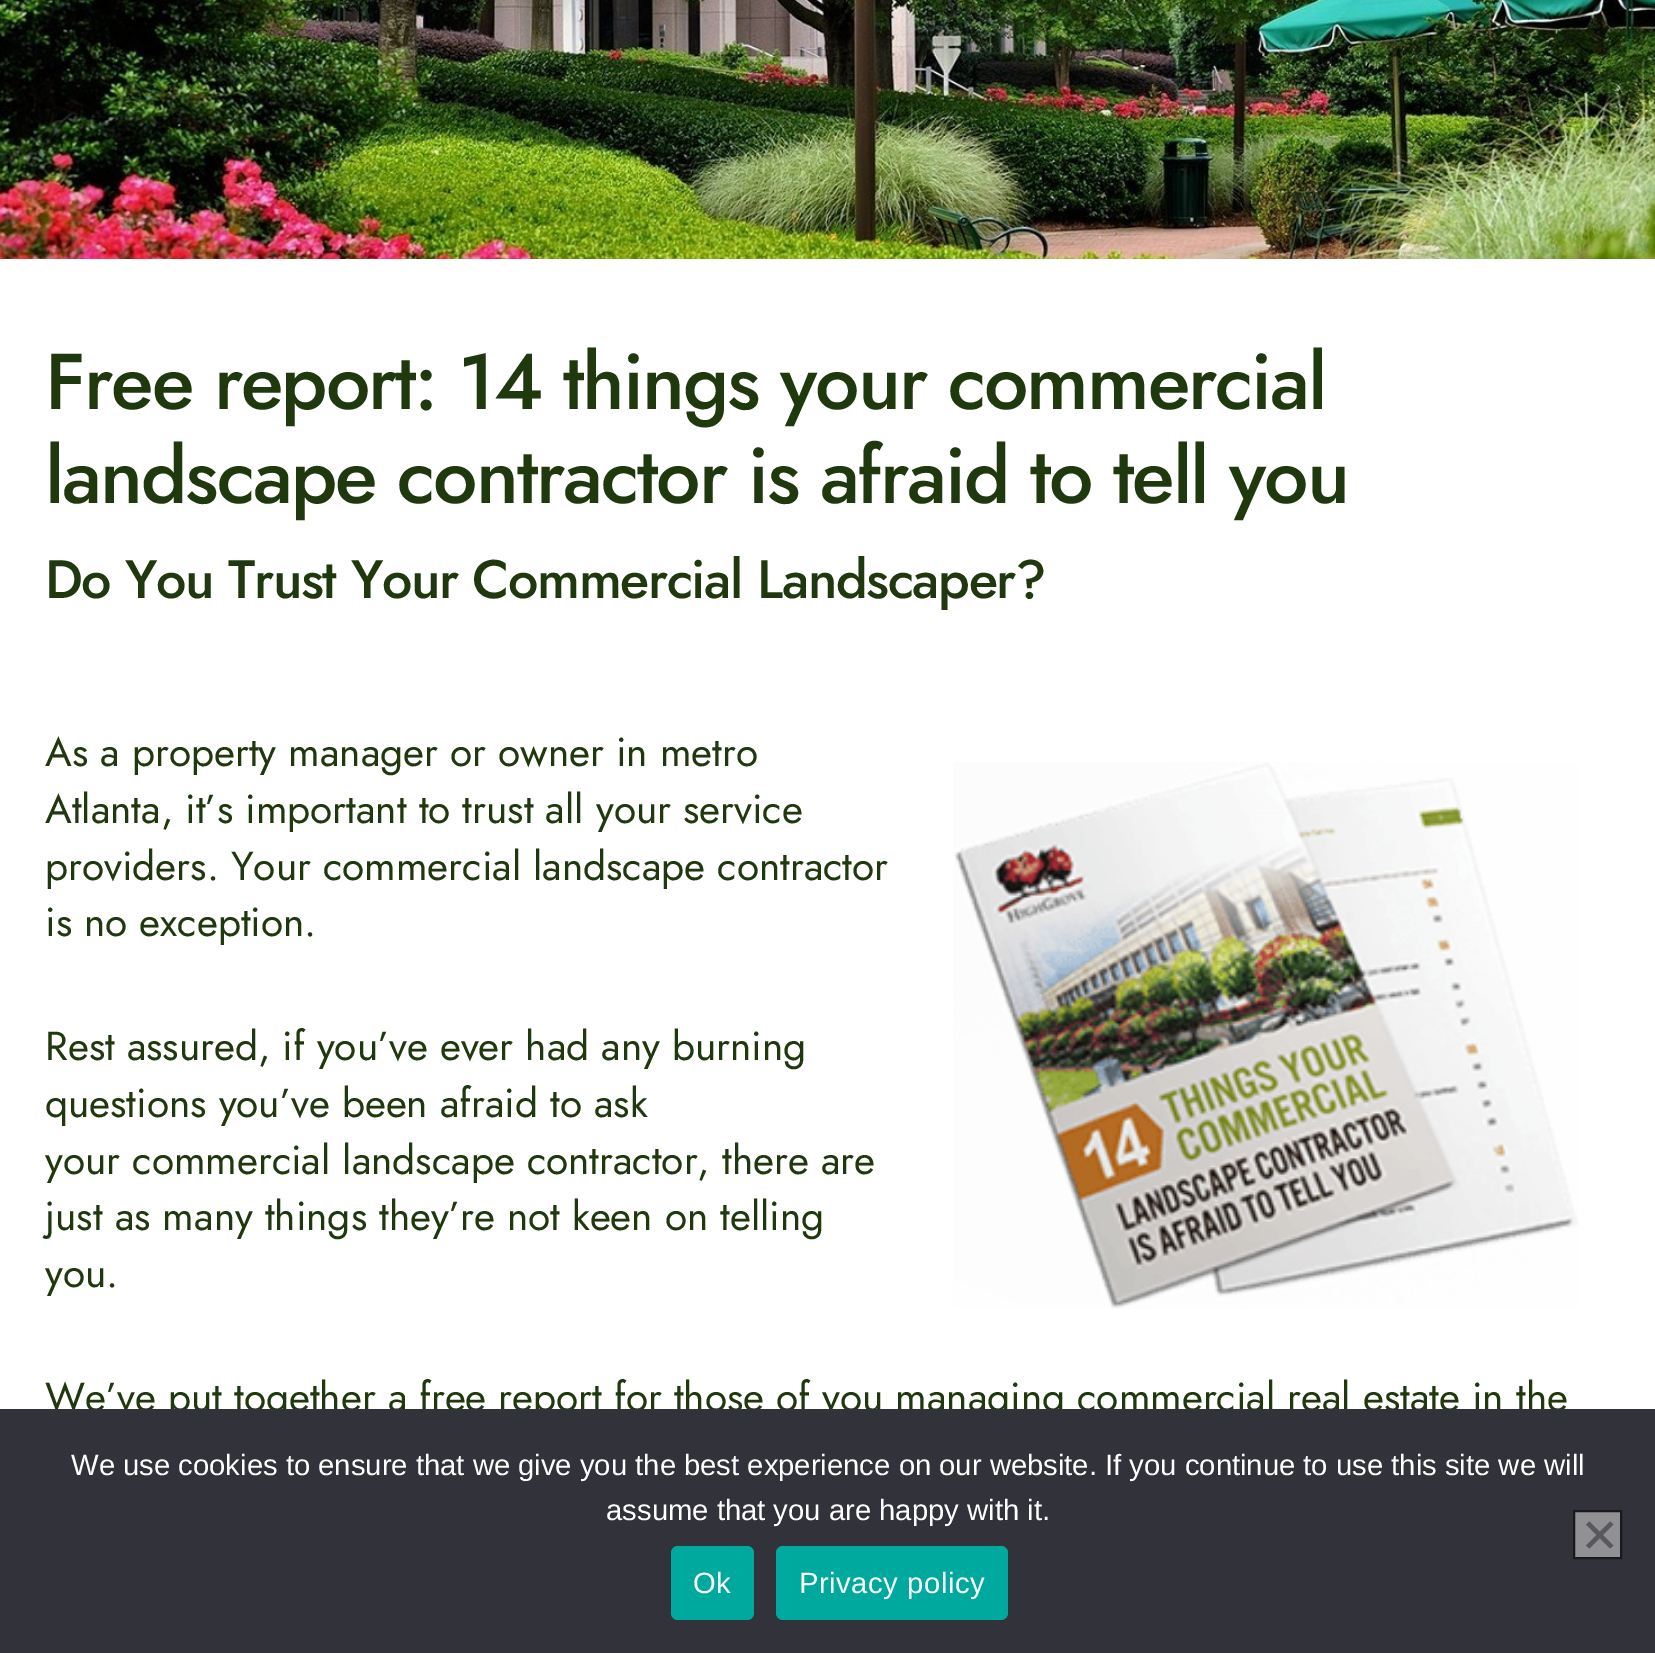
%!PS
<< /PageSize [1655 1653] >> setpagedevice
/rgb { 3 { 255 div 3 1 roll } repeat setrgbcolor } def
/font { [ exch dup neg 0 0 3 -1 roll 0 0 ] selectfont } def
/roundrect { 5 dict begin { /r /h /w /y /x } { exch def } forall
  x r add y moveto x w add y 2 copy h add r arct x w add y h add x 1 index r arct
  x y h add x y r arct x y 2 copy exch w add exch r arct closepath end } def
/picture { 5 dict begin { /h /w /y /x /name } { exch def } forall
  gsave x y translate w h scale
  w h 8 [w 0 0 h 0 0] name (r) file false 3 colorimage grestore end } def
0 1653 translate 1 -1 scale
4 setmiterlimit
255 255 255 rgb
0 0 1655 1653 rectfill
(img/1.rgb) 0 0 1655 259 picture
(img/2.rgb) 953 762 626 547 picture
/Jost-Medium 78.75 font
31 56 13 rgb
45 409 moveto -1.95 0 (Free report: 14 things your commercial) ashow
45 503 moveto -1.95 0 (landscape contractor is afraid to tell you) ashow
/Jost-Medium 54 font
45 598 moveto -1.35 0 (Do You Trust Your Commercial Landscaper?) ashow
/Jost-Regular 40.5 font
[
  [(As a property manager or owner in metro) 45 766]
  [(Atlanta, it’s important to trust all your service) 45 823]
  [(providers. Your commercial landscape contractor) 45 880]
  [(is no exception.) 45 936]
  [(Rest assured, if you’ve ever had any burning) 45 1060]
  [(questions you’ve been afraid to ask) 45 1117]
  [(your commercial landscape contractor, there are) 45 1174]
  [(just as many things they’re not keen on telling) 45 1230]
  [(you.) 45 1287]
  [(We’ve put together a free report for those of you managing commercial real estate in the) 45 1411]
] { aload pop moveto show } forall
50 50 58 rgb
0 1409 1655 244 rectfill
/LiberationSans-Regular 29.25 font
255 255 255 rgb
71 1475 moveto (We use cookies to ensure that we give you the best experience on our website. If you continue to use this site we will) show
606 1520 moveto (assume that you are happy with it.) show
145 145 149 rgb
1574 1511 moveto 1621 1511 lineto 1621 1558 lineto 1574 1558 lineto closepath gsave fill grestore
25 25 29 rgb
2 setlinewidth
stroke
89 89 93 rgb
1610 1521.5 moveto 1613.5 1524.5 lineto 1589.5 1548.5 lineto 1586 1545.5 lineto closepath fill
1586 1524.5 moveto 1589.5 1521.5 lineto 1613.5 1545.5 lineto 1610 1548.5 lineto closepath fill
0 169 157 rgb
671 1546 83 74 7 roundrect fill
255 255 255 rgb
693 1593 moveto 0.5 0 (Ok) ashow
0 169 157 rgb
776 1546 232 74 7 roundrect fill
255 255 255 rgb
799 1593 moveto 0.5 0 (Privacy policy) ashow
showpage
